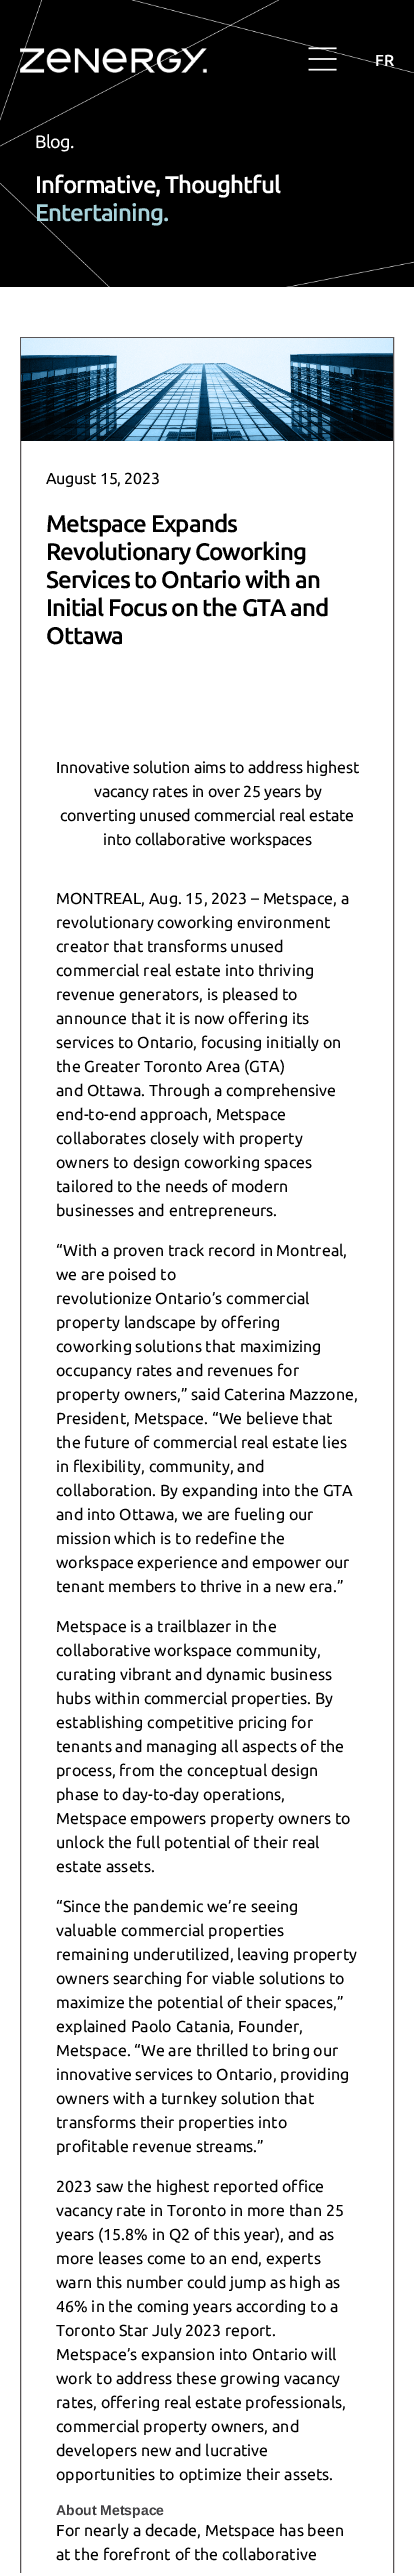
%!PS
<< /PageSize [414 2573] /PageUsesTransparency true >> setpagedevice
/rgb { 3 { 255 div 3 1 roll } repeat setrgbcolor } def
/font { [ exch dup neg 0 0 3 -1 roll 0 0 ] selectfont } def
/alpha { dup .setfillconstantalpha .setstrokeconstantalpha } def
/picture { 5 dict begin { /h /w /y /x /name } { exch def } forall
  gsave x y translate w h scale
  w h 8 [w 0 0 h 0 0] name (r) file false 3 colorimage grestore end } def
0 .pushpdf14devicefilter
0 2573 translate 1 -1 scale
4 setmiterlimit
255 255 255 rgb
0 0 414 2573 rectfill
0 0 0 rgb
0 0 414 287 rectfill
(img/1.rgb) 0 0 414 287 picture
(img/2.rgb) 20 48 187 25 picture
0.05 alpha
302 43 42 12 rectfill
1 alpha
(img/3.rgb) 308 47 29 24 picture
90 86 87 rgb
20.5 337.5 373 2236 rectstroke
(img/4.rgb) 21 338 372 103 picture
/Ubuntu-Medium 16 font
255 255 255 rgb
375 66 moveto -0.25 0 (FR) ashow
/Ubuntu-Regular 18 font
35 148 moveto -0.75 0 (Blog.) ashow
/Ubuntu-Medium 24 font
35 193 moveto -1 0 (Informative, Thoughtful) ashow
167 211 219 rgb
35 221 moveto -1 0 (Entertaining.) ashow
/Ubuntu-Regular 16 font
0 0 0 rgb
46 484 moveto -0.25 0 (August 15, 2023) ashow
/Ubuntu-Medium 24 font
46 532 moveto -1 0 (Metspace Expands) ashow
46 560 moveto -1 0 (Revolutionary Coworking) ashow
46 588 moveto -1 0 (Services to Ontario with an) ashow
46 616 moveto -1 0 (Initial Focus on the GTA and) ashow
46 644 moveto -1 0 (Ottawa) ashow
/Ubuntu-Regular 16 font
56 773 moveto -0.25 0 (Innovative solution aims to address highest) ashow
94 797 moveto -0.25 0 (vacancy rates in over 25 years by) ashow
60 821 moveto -0.25 0 (converting unused commercial real estate) ashow
103 845 moveto -0.25 0 (into collaborative workspaces) ashow
[
  [(MONTREAL, Aug. 15, 2023 – Metspace, a) 56 904]
  [(revolutionary coworking environment) 56 928]
  [(creator that transforms unused) 56 952]
  [(commercial real estate into thriving) 56 976]
  [(revenue generators, is pleased to) 56 1000]
  [(announce that it is now offering its) 56 1024]
  [(services to Ontario, focusing initially on) 56 1048]
  [(the Greater Toronto Area \(GTA\)) 56 1072]
  [(and Ottawa. Through a comprehensive) 56 1096]
  [(end-to-end approach, Metspace) 56 1120]
  [(collaborates closely with property) 56 1144]
  [(owners to design coworking spaces) 56 1168]
  [(tailored to the needs of modern) 56 1192]
  [(businesses and entrepreneurs.) 56 1216]
  [(“With a proven track record in Montreal,) 56 1256]
  [(we are poised to) 56 1280]
  [(revolutionize Ontario’s commercial) 56 1304]
  [(property landscape by offering) 56 1328]
  [(coworking solutions that maximizing) 56 1352]
  [(occupancy rates and revenues for) 56 1376]
  [(property owners,” said Caterina Mazzone,) 56 1400]
  [(President, Metspace. “We believe that) 56 1424]
  [(the future of commercial real estate lies) 56 1448]
  [(in flexibility, community, and) 56 1472]
  [(collaboration. By expanding into the GTA) 56 1496]
  [(and into Ottawa, we are fueling our) 56 1520]
  [(mission which is to redefine the) 56 1544]
  [(workspace experience and empower our) 56 1568]
  [(tenant members to thrive in a new era.”) 56 1592]
  [(Metspace is a trailblazer in the) 56 1632]
  [(collaborative workspace community,) 56 1656]
  [(curating vibrant and dynamic business) 56 1680]
  [(hubs within commercial properties. By) 56 1704]
  [(establishing competitive pricing for) 56 1728]
  [(tenants and managing all aspects of the) 56 1752]
  [(process, from the conceptual design) 56 1776]
  [(phase to day-to-day operations,) 56 1800]
  [(Metspace empowers property owners to) 56 1824]
  [(unlock the full potential of their real) 56 1848]
  [(estate assets.) 56 1872]
  [(“Since the pandemic we’re seeing) 56 1912]
  [(valuable commercial properties) 56 1936]
  [(remaining underutilized, leaving property) 56 1960]
  [(owners searching for viable solutions to) 56 1984]
  [(maximize the potential of their spaces,”) 56 2008]
  [(explained Paolo Catania, Founder,) 56 2032]
  [(Metspace. “We are thrilled to bring our) 56 2056]
  [(innovative services to Ontario, providing) 56 2080]
  [(owners with a turnkey solution that) 56 2104]
  [(transforms their properties into) 56 2128]
  [(profitable revenue streams.”) 56 2152]
  [(2023 saw the highest reported office) 56 2192]
  [(vacancy rate in Toronto in more than 25) 56 2216]
  [(years \(15.8% in Q2 of this year\), and as) 56 2240]
  [(more leases come to an end, experts) 56 2264]
  [(warn this number could jump as high as) 56 2288]
  [(46% in the coming years according to a) 56 2312]
  [(Toronto Star July 2023 report.) 56 2336]
  [(Metspace’s expansion into Ontario will) 56 2360]
  [(work to address these growing vacancy) 56 2384]
  [(rates, offering real estate professionals,) 56 2408]
  [(commercial property owners, and) 56 2432]
  [(developers new and lucrative) 56 2456]
  [(opportunities to optimize their assets.) 56 2480]
] { aload pop moveto show } forall
/LiberationSans-Bold 14 font
64 63 66 rgb
56 2515 moveto (About Metspace) show
/Ubuntu-Regular 16 font
0 0 0 rgb
56 2536 moveto (For nearly a decade, Metspace has been) show
56 2560 moveto (at the forefront of the collaborative) show
.poppdf14devicefilter showpage
